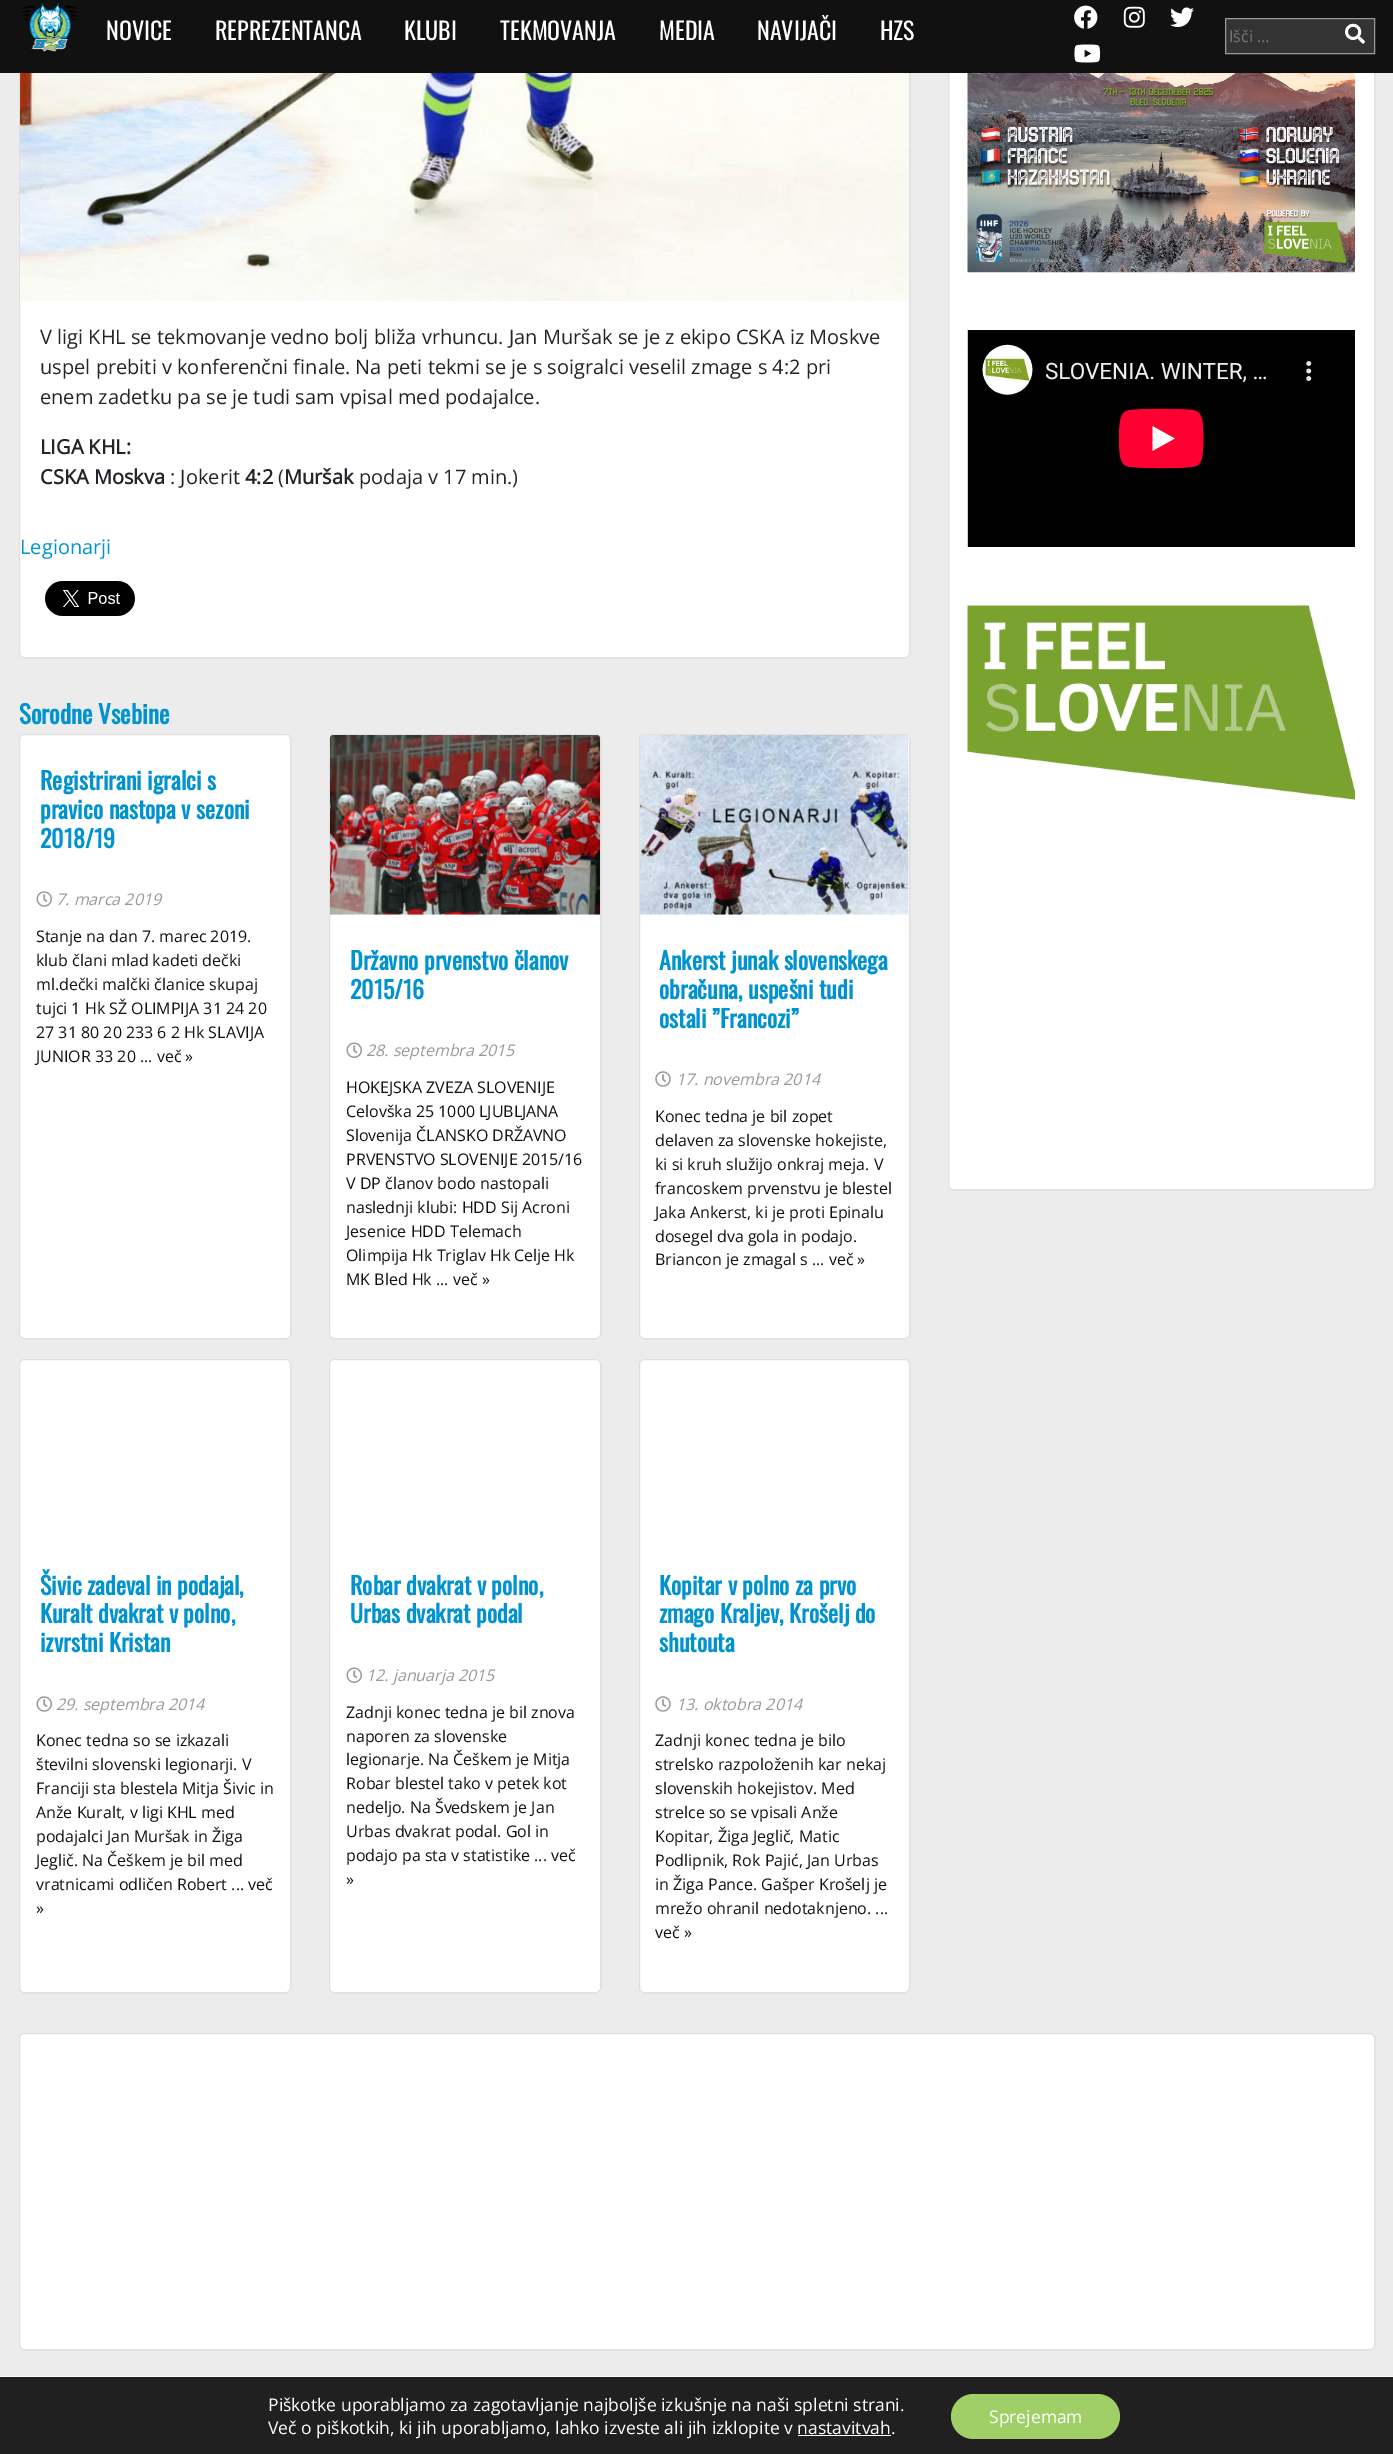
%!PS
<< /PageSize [1393 2454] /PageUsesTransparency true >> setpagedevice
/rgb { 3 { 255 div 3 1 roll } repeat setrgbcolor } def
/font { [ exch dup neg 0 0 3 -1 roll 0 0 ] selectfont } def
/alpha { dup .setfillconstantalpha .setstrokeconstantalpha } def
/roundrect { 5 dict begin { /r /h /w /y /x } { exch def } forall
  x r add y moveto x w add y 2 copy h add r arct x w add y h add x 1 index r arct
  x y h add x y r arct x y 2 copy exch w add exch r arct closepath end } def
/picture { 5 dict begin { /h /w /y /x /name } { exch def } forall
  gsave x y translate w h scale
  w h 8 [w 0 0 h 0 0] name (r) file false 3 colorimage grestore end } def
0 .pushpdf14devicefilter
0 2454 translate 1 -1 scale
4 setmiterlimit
236 236 236 rgb
0 0 1393 2454 rectfill
255 255 255 rgb
19 -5 891 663 5 roundrect fill
0.12 alpha
0 0 0 rgb
19.5 -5.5 890 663 4.5 roundrect stroke
1 alpha
255 255 255 rgb
948 -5 427 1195 5 roundrect fill
0.12 alpha
0 0 0 rgb
948.5 -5.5 426 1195 4.5 roundrect stroke
1 alpha
17 17 17 rgb
0 0 1393 73 rectfill
(img/1.rgb) 21 0 58 52 picture
(img/2.rgb) 1074 5 24 24 picture
(img/3.rgb) 1123 6 22 22 picture
(img/4.rgb) 1170 7 24 20 picture
(img/5.rgb) 1074 44 27 19 picture
51 51 51 rgb
1225.5 18.5 moveto 1374.5 18.5 lineto 1374.5 53.5 lineto 1225.5 53.5 lineto closepath gsave fill grestore
153 153 153 rgb
stroke
(img/6.rgb) 1345 23 20 21 picture
(img/7.rgb) 20 73 889 228 picture
(img/8.rgb) 45 581 90 35 picture
255 255 255 rgb
19 734 272 605 5 roundrect fill
0.12 alpha
0 0 0 rgb
19.5 734.5 271 604 4.5 roundrect stroke
1 alpha
(img/9.rgb) 36 891 16 16 picture
255 255 255 rgb
329 734 272 605 5 roundrect fill
0.12 alpha
0 0 0 rgb
329.5 734.5 271 604 4.5 roundrect stroke
1 alpha
(img/10.rgb) 330 735 270 180 picture
(img/11.rgb) 346 1042 16 16 picture
255 255 255 rgb
639 734 271 605 5 roundrect fill
0.12 alpha
0 0 0 rgb
639.5 734.5 270 604 4.5 roundrect stroke
1 alpha
(img/12.rgb) 640 735 269 180 picture
(img/13.rgb) 655 1071 16 16 picture
255 255 255 rgb
19 1359 272 634 5 roundrect fill
0.12 alpha
0 0 0 rgb
19.5 1359.5 271 633 4.5 roundrect stroke
1 alpha
(img/9.rgb) 36 1696 16 16 picture
255 255 255 rgb
329 1359 272 634 5 roundrect fill
0.12 alpha
0 0 0 rgb
329.5 1359.5 271 633 4.5 roundrect stroke
1 alpha
(img/11.rgb) 346 1667 16 16 picture
255 255 255 rgb
639 1359 271 634 5 roundrect fill
0.12 alpha
0 0 0 rgb
639.5 1359.5 270 633 4.5 roundrect stroke
1 alpha
(img/13.rgb) 655 1696 16 16 picture
(img/14.rgb) 967 73 388 200 picture
(img/15.rgb) 967 330 388 217 picture
(img/16.rgb) 967 604 388 196 picture
255 255 255 rgb
19 2033 1356 317 5 roundrect fill
0.12 alpha
0 0 0 rgb
19.5 2033.5 1355 316 4.5 roundrect stroke
1 alpha
[
  [0 2377 1393 77 32 32 32]
  [0 2376 1393 1 255 255 255]
  [798 2435 93 1 255 255 255]
] { aload pop rgb rectfill } forall
160 207 103 rgb
951 2394 169 45 22.5 roundrect fill
/Oswald-Regular 24 font
255 255 255 rgb
[
  [(NOVICE) 106 40]
  [(REPREZENTANCA) 215 40]
  [(KLUBI) 404 40]
  [(TEKMOVANJA) 500 40]
  [(MEDIA) 659 40]
  [(NAVIJAČI) 757 40]
  [(HZS) 880 40]
] { aload pop moveto show } forall
/OpenSans-Regular 16 font
117 117 117 rgb
1229 42 moveto (Išči …) show
/OpenSans-Regular 20 font
33 37 41 rgb
[
  [(V ligi KHL se tekmovanje vedno bolj bliža vrhuncu. Jan Muršak se je z ekipo CSKA iz Moskve) 40 344]
  [(uspel prebiti v konferenčni finale. Na peti tekmi se je s soigralci veselil zmage s 4:2 pri) 40 374]
  [(enem zadetku pa se je tudi sam vpisal med podajalce.) 40 404]
] { aload pop moveto show } forall
/OpenSans-Bold 20 font
40 454 moveto (LIGA KHL:) show
40 484 moveto (CSKA Moskva) show
/OpenSans-Regular 20 font
170 484 moveto (: Jokerit) show
/OpenSans-Bold 20 font
245 484 moveto (4:2) show
/OpenSans-Regular 20 font
278 484 moveto (\() show
/OpenSans-Bold 20 font
284 484 moveto (Muršak) show
/OpenSans-Regular 20 font
359 484 moveto (podaja v 17 min.\)) show
0 147 208 rgb
20 554 moveto (Legionarji) show
/Oswald-Bold 25 font
19 724 moveto (Sorodne Vsebine) show
/Oswald-Bold 24 font
[
  [(Registrirani igralci s) 40 790]
  [(pravico nastopa v sezoni) 40 819]
  [(2018/19) 40 848]
] { aload pop moveto show } forall
/OpenSans-Italic 16 font
153 153 153 rgb
56 905 moveto (7. marca 2019) show
/OpenSans-Regular 16 font
17 17 17 rgb
[
  [(Stanje na dan 7. marec 2019.) 36 942]
  [(klub člani mlad kadeti dečki) 36 966]
  [(ml.dečki malčki članice skupaj) 36 990]
  [(tujci 1 Hk SŽ OLIMPIJA 31 24 20) 36 1014]
  [(27 31 80 20 233 6 2 Hk SLAVIJA) 36 1038]
  [(JUNIOR 33 20 ... več ») 36 1062]
] { aload pop moveto show } forall
/Oswald-Bold 24 font
0 147 208 rgb
350 970 moveto (Državno prvenstvo članov) show
350 999 moveto (2015/16) show
/OpenSans-Italic 16 font
153 153 153 rgb
366 1056 moveto (28. septembra 2015) show
/OpenSans-Regular 16 font
17 17 17 rgb
[
  [(HOKEJSKA ZVEZA SLOVENIJE) 346 1093]
  [(Celovška 25 1000 LJUBLJANA) 346 1117]
  [(Slovenija ČLANSKO DRŽAVNO) 346 1141]
  [(PRVENSTVO SLOVENIJE 2015/16) 346 1165]
  [(V DP članov bodo nastopali) 346 1189]
  [(naslednji klubi: HDD Sij Acroni) 346 1213]
  [(Jesenice HDD Telemach) 346 1237]
  [(Olimpija Hk Triglav Hk Celje Hk) 346 1261]
  [(MK Bled Hk ... več ») 346 1285]
] { aload pop moveto show } forall
/Oswald-Bold 24 font
0 147 208 rgb
[
  [(Ankerst junak slovenskega) 659 970]
  [(obračuna, uspešni tudi) 659 999]
  [(ostali ”Francozi”) 659 1028]
] { aload pop moveto show } forall
/OpenSans-Italic 16 font
153 153 153 rgb
676 1085 moveto (17. novembra 2014) show
/OpenSans-Regular 16 font
17 17 17 rgb
[
  [(Konec tedna je bil zopet) 655 1122]
  [(delaven za slovenske hokejiste,) 655 1146]
  [(ki si kruh služijo onkraj meja. V) 655 1170]
  [(francoskem prvenstvu je blestel) 655 1194]
  [(Jaka Ankerst, ki je proti Epinalu) 655 1218]
  [(dosegel dva gola in podajo.) 655 1242]
  [(Briancon je zmagal s ... več ») 655 1265]
] { aload pop moveto show } forall
/Oswald-Bold 24 font
0 147 208 rgb
[
  [(Šivic zadeval in podajal,) 40 1595]
  [(Kuralt dvakrat v polno,) 40 1623]
  [(izvrstni Kristan) 40 1652]
] { aload pop moveto show } forall
/OpenSans-Italic 16 font
153 153 153 rgb
56 1710 moveto (29. septembra 2014) show
/OpenSans-Regular 16 font
17 17 17 rgb
[
  [(Konec tedna so se izkazali) 36 1746]
  [(številni slovenski legionarji. V) 36 1770]
  [(Franciji sta blestela Mitja Šivic in) 36 1794]
  [(Anže Kuralt, v ligi KHL med) 36 1818]
  [(podajalci Jan Muršak in Žiga) 36 1842]
  [(Jeglič. Na Češkem je bil med) 36 1866]
  [(vratnicami odličen Robert ... več) 36 1890]
  [(») 36 1914]
] { aload pop moveto show } forall
/Oswald-Bold 24 font
0 147 208 rgb
350 1595 moveto (Robar dvakrat v polno,) show
350 1623 moveto (Urbas dvakrat podal) show
/OpenSans-Italic 16 font
153 153 153 rgb
366 1681 moveto (12. januarja 2015) show
/OpenSans-Regular 16 font
17 17 17 rgb
[
  [(Zadnji konec tedna je bil znova) 346 1718]
  [(naporen za slovenske) 346 1742]
  [(legionarje. Na Češkem je Mitja) 346 1765]
  [(Robar blestel tako v petek kot) 346 1789]
  [(nedeljo. Na Švedskem je Jan) 346 1813]
  [(Urbas dvakrat podal. Gol in) 346 1837]
  [(podajo pa sta v statistike ... več) 346 1861]
  [(») 346 1885]
] { aload pop moveto show } forall
/Oswald-Bold 24 font
0 147 208 rgb
[
  [(Kopitar v polno za prvo) 659 1595]
  [(zmago Kraljev, Krošelj do) 659 1623]
  [(shutouta) 659 1652]
] { aload pop moveto show } forall
/OpenSans-Italic 16 font
153 153 153 rgb
676 1710 moveto (13. oktobra 2014) show
/OpenSans-Regular 16 font
17 17 17 rgb
[
  [(Zadnji konec tedna je bilo) 655 1746]
  [(strelsko razpoloženih kar nekaj) 655 1770]
  [(slovenskih hokejistov. Med) 655 1794]
  [(strelce so se vpisali Anže) 655 1818]
  [(Kopitar, Žiga Jeglič, Matic) 655 1842]
  [(Podlipnik, Rok Pajić, Jan Urbas) 655 1866]
  [(in Žiga Pance. Gašper Krošelj je) 655 1890]
  [(mrežo ohranil nedotaknjeno. ...) 655 1914]
  [(več ») 655 1938]
] { aload pop moveto show } forall
/OpenSans-Regular 17.5 font
255 255 255 rgb
[
  [(Piškotke uporabljamo za zagotavljanje najboljše izkušnje na naši spletni strani.) 268 2411]
  [(Več o piškotkih, ki jih uporabljamo, lahko izveste ali jih izklopite v nastavitvah.) 268 2434]
  [(Sprejemam) 989 2423]
] { aload pop moveto show } forall
.poppdf14devicefilter showpage
